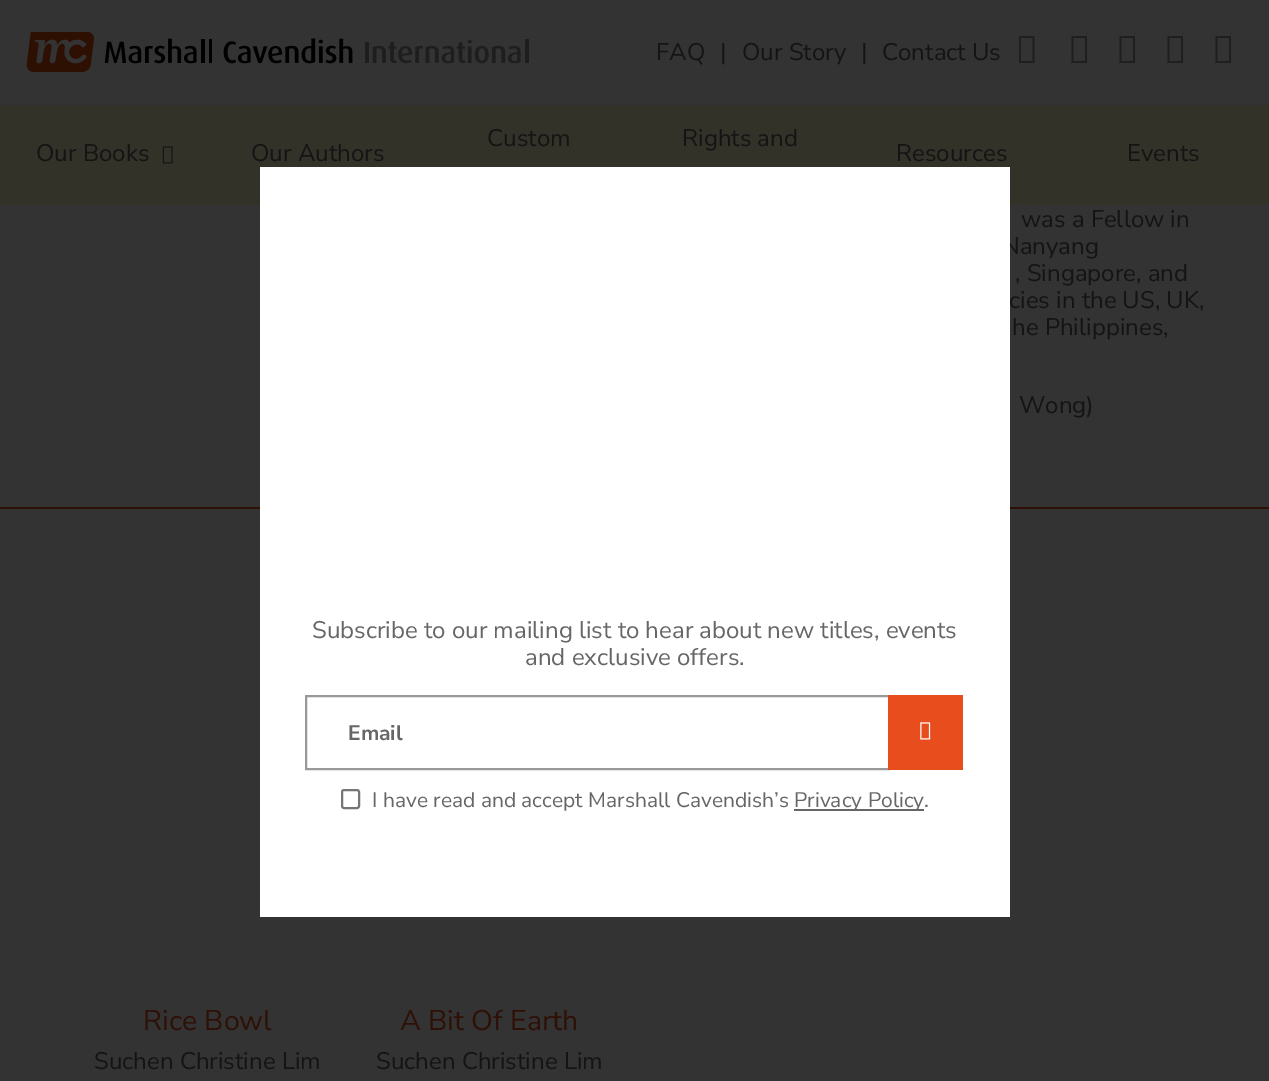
%!PS
<< /PageSize [1269 1081] >> setpagedevice
/rgb { 3 { 255 div 3 1 roll } repeat setrgbcolor } def
/font { [ exch dup neg 0 0 3 -1 roll 0 0 ] selectfont } def
/roundrect { 5 dict begin { /r /h /w /y /x } { exch def } forall
  x r add y moveto x w add y 2 copy h add r arct x w add y h add x 1 index r arct
  x y h add x y r arct x y 2 copy exch w add exch r arct closepath end } def
/picture { 5 dict begin { /h /w /y /x /name } { exch def } forall
  gsave x y translate w h scale
  w h 8 [w 0 0 h 0 0] name (r) file false 3 colorimage grestore end } def
0 1081 translate 1 -1 scale
4 setmiterlimit
51 51 51 rgb
0 0 1269 1081 rectfill
(img/1.rgb) 26 32 503 40 picture
31 31 31 rgb
1019 63 moveto 1019 36 lineto 1034.5 36 lineto 1034.5 63 lineto closepath 1021 61 moveto 1032.5 61 lineto 1032.5 38 lineto 1021 38 lineto closepath fill
1071.5 63 moveto 1071.5 36 lineto 1087 36 lineto 1087 63 lineto closepath 1073.5 61 moveto 1085 61 lineto 1085 38 lineto 1073.5 38 lineto closepath fill
1119.5 63 moveto 1119.5 36 lineto 1135 36 lineto 1135 63 lineto closepath 1121.5 61 moveto 1133 61 lineto 1133 38 lineto 1121.5 38 lineto closepath fill
1167.5 63 moveto 1167.5 36 lineto 1183 36 lineto 1183 63 lineto closepath 1169.5 61 moveto 1181 61 lineto 1181 38 lineto 1169.5 38 lineto closepath fill
1215.5 63 moveto 1215.5 36 lineto 1231 36 lineto 1231 63 lineto closepath 1217.5 61 moveto 1229 61 lineto 1229 38 lineto 1217.5 38 lineto closepath fill
51 50 40 rgb
0 105 1269 95 rectfill
0 200 260 5 rectfill
(img/2.rgb) 162 146 11 18 picture
[
  [1010 200 259 5 51 50 40]
  [0 507 260 2 46 16 6]
  [1010 507 259 2 46 16 6]
] { aload pop rgb rectfill } forall
/NunitoSans-Regular 24 font
20 20 20 rgb
[
  [(FAQ) 656 60]
  [(|) 720 60]
  [(Our Story) 742 60]
  [(|) 861 60]
  [(Contact Us) 882 60]
  [(Our Books) 36 161]
  [(Our Authors) 251 161]
  [(Custom) 487 146]
  [(Rights and) 682 146]
  [(Resources) 896 161]
  [(Events) 1127 161]
  [(was a Fellow in) 1021 227]
  [(Nanyang) 1002 254]
] { aload pop moveto show } forall
255 255 255 rgb
260 167 750 750 rectfill
153 153 153 rgb
2 setlinewidth
306 696 583 73 rectstroke
/NunitoSans-Bold 21 font
102 102 102 rgb
348 740 moveto (Email) show
232 78 29 rgb
888 695 75 75 rectfill
(img/3.rgb) 920 722 11 18 picture
102 102 102 rgb
794 809 130 2 rectfill
/NunitoSans-Regular 21 font
794 807 moveto (Privacy Policy.) show
372 807 moveto (I have read and accept Marshall Cavendish’s) show
118 118 118 rgb
342 790 17 18 2 roundrect stroke
/NunitoSans-Regular 24 font
102 102 102 rgb
525 665 moveto (and exclusive offers.) show
312 638 moveto (Subscribe to our mailing list to hear about new titles, events) show
20 20 20 rgb
[
  [(, Singapore, and) 1015 281]
  [(cies in the US, UK,) 1009 308]
  [(he Philippines,) 1012 335]
  [(Wong\)) 1019 413]
] { aload pop moveto show } forall
/NunitoSans-Regular 28.5 font
46 16 6 rgb
143 1030 moveto (Rice Bowl) show
/NunitoSans-Regular 24 font
20 20 20 rgb
94 1069 moveto (Suchen Christine Lim) show
/NunitoSans-Regular 28.5 font
46 16 6 rgb
400 1030 moveto (A Bit Of Earth) show
/NunitoSans-Regular 24 font
20 20 20 rgb
376 1069 moveto (Suchen Christine Lim) show
showpage
